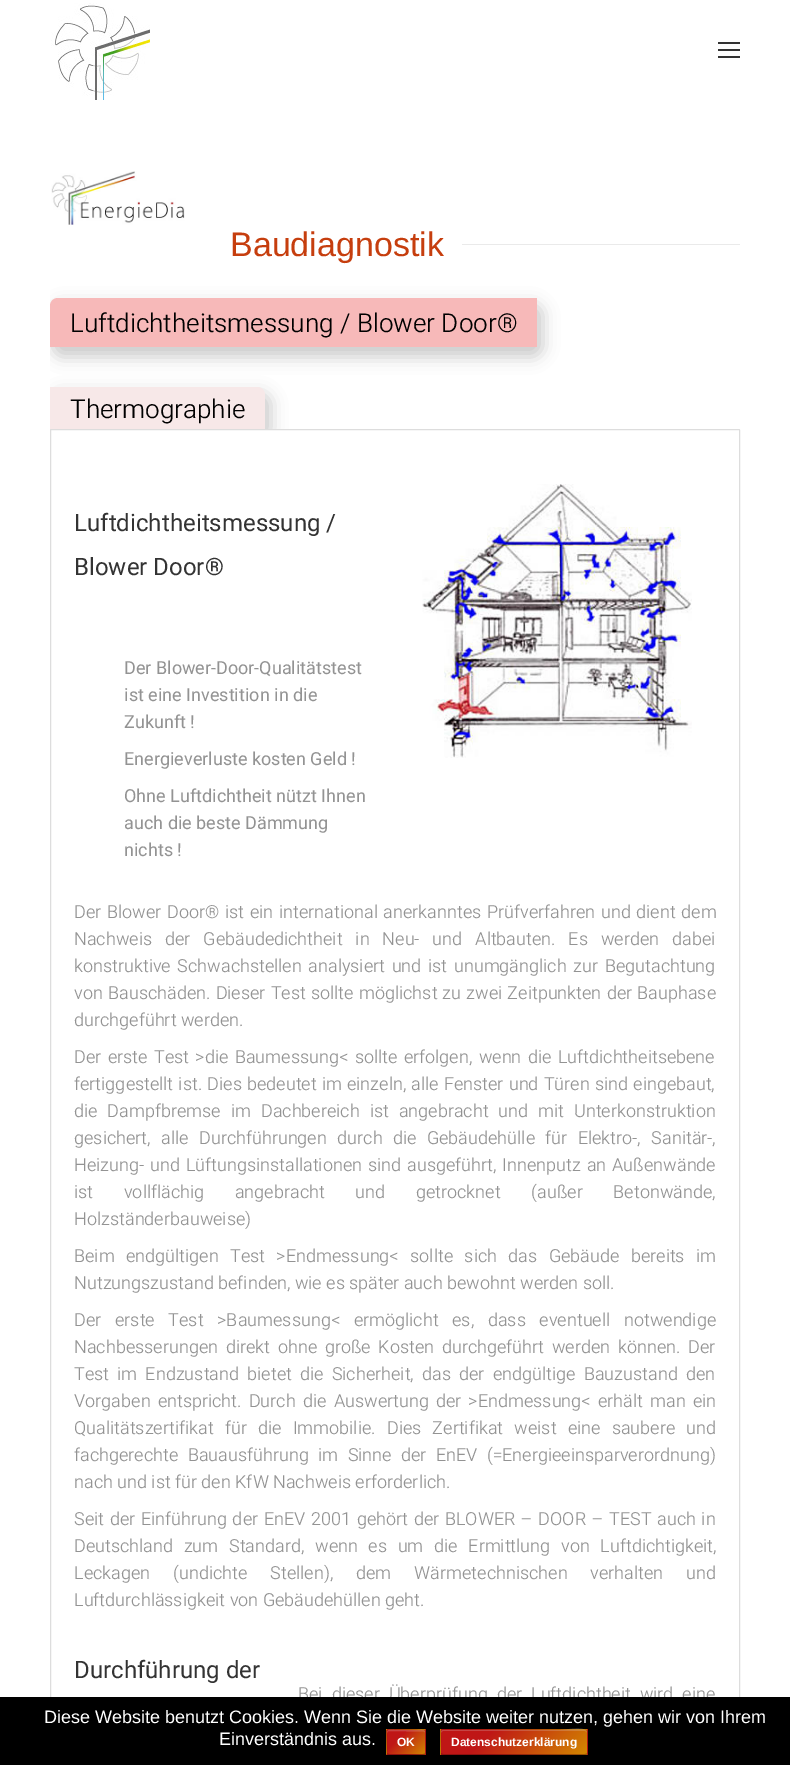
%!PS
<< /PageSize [790 1765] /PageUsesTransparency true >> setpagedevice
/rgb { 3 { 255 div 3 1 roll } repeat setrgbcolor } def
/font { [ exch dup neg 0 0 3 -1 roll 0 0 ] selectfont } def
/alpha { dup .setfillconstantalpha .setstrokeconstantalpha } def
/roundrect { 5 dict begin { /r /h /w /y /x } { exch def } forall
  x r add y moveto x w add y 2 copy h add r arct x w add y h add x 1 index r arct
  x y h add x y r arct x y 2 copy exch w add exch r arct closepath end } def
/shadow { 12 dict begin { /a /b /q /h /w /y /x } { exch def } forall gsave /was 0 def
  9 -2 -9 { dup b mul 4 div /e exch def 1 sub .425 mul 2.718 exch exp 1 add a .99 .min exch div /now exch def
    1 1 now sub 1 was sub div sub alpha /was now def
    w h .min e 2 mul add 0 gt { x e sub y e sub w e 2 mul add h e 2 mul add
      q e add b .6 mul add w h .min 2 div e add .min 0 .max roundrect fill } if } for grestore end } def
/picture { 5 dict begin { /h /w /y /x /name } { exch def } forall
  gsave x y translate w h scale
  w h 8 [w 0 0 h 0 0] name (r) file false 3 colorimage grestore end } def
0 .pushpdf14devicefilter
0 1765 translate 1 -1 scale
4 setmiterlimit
255 255 255 rgb
0 0 790 1765 rectfill
(img/1.rgb) 51 3 99 97 picture
[
  [718 49 22 2 51 51 51]
  [718 42 22 2 51 51 51]
  [718 56 22 2 51 51 51]
] { aload pop rgb rectfill } forall
(img/2.rgb) 51 171 134 54 picture
234 234 234 rgb
462 244 278 1 rectfill
gsave
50 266 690 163 rectclip
0 0 0 rgb
52 304 491 53 10 8 0.2 shadow
grestore
247 185 185 rgb
58 298 moveto 537 298 lineto 537 347 lineto 50 347 lineto 50 306 lineto 50 301.5 53.5 298 58 298 curveto closepath fill
221 221 221 rgb
50.5 429.5 689 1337 0.5 roundrect stroke
gsave
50 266 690 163 rectclip
0 0 0 rgb
52 393 219 46 10 8 0.2 shadow
grestore
247 232 232 rgb
50 387 moveto 257 387 lineto 261.5 387 265 390.5 265 395 curveto 265 429 lineto 50 429 lineto closepath fill
(img/3.rgb) 422 484 270 274 picture
/LiberationSans-Regular 34 font
198 62 14 rgb
230 256 moveto (Baudiagnostik) show
/Heebo-Light 26 font
0 0 0 rgb
70 332 moveto (Luftdichtheitsmessung / Blower Door®) show
70 418 moveto (Thermographie) show
/Heebo-Regular 24 font
51 51 51 rgb
74 531 moveto (Luftdichtheitsmessung /) show
74 575 moveto (Blower Door®) show
/Heebo-Regular 18 font
147 147 147 rgb
[
  [(Der Blower-Door-Qualitätstest) 124 674]
  [(ist eine Investition in die) 124 701]
  [(Zukunft !) 124 728]
  [(Energieverluste kosten Geld !) 124 765]
  [(Ohne Luftdichtheit nützt Ihnen) 124 802]
  [(auch die beste Dämmung) 124 829]
  [(nichts !) 124 856]
] { aload pop moveto show } forall
/Heebo-Light 18 font
74 918 moveto 1.25 0 32 (Der Blower Door® ist ein international anerkanntes Prüfverfahren und dient dem) widthshow
74 945 moveto 8.5 0 32 (Nachweis der Gebäudedichtheit in Neu- und Altbauten. Es werden dabei) widthshow
74 972 moveto 2.25 0 32 (konstruktive Schwachstellen analysiert und ist unumgänglich zur Begutachtung) widthshow
74 999 moveto 0.75 0 32 (von Bauschäden. Dieser Test sollte möglichst zu zwei Zeitpunkten der Bauphase) widthshow
74 1026 moveto (durchgeführt werden.) show
74 1063 moveto 2 0 32 (Der erste Test >die Baumessung< sollte erfolgen, wenn die Luftdichtheitsebene) widthshow
74 1090 moveto 0.75 0 32 (fertiggestellt ist. Dies bedeutet im einzeln, alle Fenster und Türen sind eingebaut,) widthshow
74 1117 moveto 5.5 0 32 (die Dampfbremse im Dachbereich ist angebracht und mit Unterkonstruktion) widthshow
74 1144 moveto 6 0 32 (gesichert, alle Durchführungen durch die Gebäudehülle für Elektro-, Sanitär-,) widthshow
74 1171 moveto 1.5 0 32 (Heizung- und Lüftungsinstallationen sind ausgeführt, Innenputz an Außenwände) widthshow
74 1198 moveto 26.25 0 32 (ist vollflächig angebracht und getrocknet \(außer Betonwände,) widthshow
74 1225 moveto (Holzständerbauweise\)) show
74 1262 moveto 7 0 32 (Beim endgültigen Test >Endmessung< sollte sich das Gebäude bereits im) widthshow
74 1289 moveto (Nutzungszustand befinden, wie es später auch bewohnt werden soll.) show
74 1326 moveto 9.25 0 32 (Der erste Test >Baumessung< ermöglicht es, dass eventuell notwendige) widthshow
74 1353 moveto 3.25 0 32 (Nachbesserungen direkt ohne große Kosten durchgeführt werden können. Der) widthshow
74 1380 moveto 3.75 0 32 (Test im Endzustand bietet die Sicherheit, das der endgültige Bauzustand den) widthshow
74 1407 moveto 2.75 0 32 (Vorgaben entspricht. Durch die Auswertung der >Endmessung< erhält man ein) widthshow
74 1434 moveto 6.75 0 32 (Qualitätszertifikat für die Immobilie. Dies Zertifikat weist eine saubere und) widthshow
74 1461 moveto 5 0 32 (fachgerechte Bauausführung im Sinne der EnEV \(=Energieeinsparverordnung\)) widthshow
74 1488 moveto (nach und ist für den KfW Nachweis erforderlich.) show
74 1525 moveto 1.25 0 32 (Seit der Einführung der EnEV 2001 gehört der BLOWER – DOOR – TEST auch in) widthshow
74 1552 moveto 6.25 0 32 (Deutschland zum Standard, wenn es um die Ermittlung von Luftdichtigkeit,) widthshow
74 1579 moveto 18.5 0 32 (Leckagen \(undichte Stellen\), dem Wärmetechnischen verhalten und) widthshow
74 1606 moveto (Luftdurchlässigkeit von Gebäudehüllen geht.) show
/Heebo-Regular 24 font
51 51 51 rgb
74 1678 moveto (Durchführung der) show
/Heebo-Light 18 font
147 147 147 rgb
298 1700 moveto 4.5 0 32 (Bei dieser Überprüfung der Luftdichtheit wird eine) widthshow
0 0 0 rgb
0 1697 790 68 rectfill
/LiberationSans-Regular 18 font
255 255 255 rgb
44 1723 moveto (Diese Website benutzt Cookies. Wenn Sie die Website weiter nutzen, gehen wir von Ihrem) show
219 1745 moveto (Einverständnis aus.) show
gsave 386 1729 moveto 387 1729 lineto 387 1730 lineto 386 1730 lineto closepath clip newpath
<< /ShadingType 2 /ColorSpace /DeviceRGB /Coords [353 1703 384 1734] /Extend [true true] /Function << /FunctionType 3 /Domain [0 1] /Functions [<< /FunctionType 2 /Domain [0 1] /C0 [0.749 0.086 0.086] /C1 [0.749 0.086 0.086] /N 1 >> << /FunctionType 2 /Domain [0 1] /C0 [0.749 0.086 0.086] /C1 [0.827 0.537 0] /N 1 >>] /Bounds [0.3] /Encode [0 1 0 1] >> >> shfill grestore
gsave
386 1729 40 26 3 roundrect clip newpath
gsave 387 1729 moveto 425 1729 lineto 425 1730 lineto 387 1730 lineto closepath clip newpath
<< /ShadingType 2 /ColorSpace /DeviceRGB /Coords [391 1703 422 1734] /Extend [true true] /Function << /FunctionType 3 /Domain [0 1] /Functions [<< /FunctionType 2 /Domain [0 1] /C0 [0.749 0.086 0.086] /C1 [0.749 0.086 0.086] /N 1 >> << /FunctionType 2 /Domain [0 1] /C0 [0.749 0.086 0.086] /C1 [0.827 0.537 0] /N 1 >>] /Bounds [0.3] /Encode [0 1 0 1] >> >> shfill grestore
grestore
gsave 425 1729 moveto 426 1729 lineto 426 1730 lineto 425 1730 lineto closepath clip newpath
<< /ShadingType 2 /ColorSpace /DeviceRGB /Coords [429 1703 460 1734] /Extend [true true] /Function << /FunctionType 3 /Domain [0 1] /Functions [<< /FunctionType 2 /Domain [0 1] /C0 [0.749 0.086 0.086] /C1 [0.749 0.086 0.086] /N 1 >> << /FunctionType 2 /Domain [0 1] /C0 [0.749 0.086 0.086] /C1 [0.827 0.537 0] /N 1 >>] /Bounds [0.3] /Encode [0 1 0 1] >> >> shfill grestore
gsave
386 1729 40 26 3 roundrect clip newpath
gsave 386 1730 moveto 387 1730 lineto 387 1754 lineto 386 1754 lineto closepath clip newpath
<< /ShadingType 2 /ColorSpace /DeviceRGB /Coords [353 1727 384 1758] /Extend [true true] /Function << /FunctionType 3 /Domain [0 1] /Functions [<< /FunctionType 2 /Domain [0 1] /C0 [0.749 0.086 0.086] /C1 [0.749 0.086 0.086] /N 1 >> << /FunctionType 2 /Domain [0 1] /C0 [0.749 0.086 0.086] /C1 [0.827 0.537 0] /N 1 >>] /Bounds [0.3] /Encode [0 1 0 1] >> >> shfill grestore
grestore
gsave 387 1730 moveto 425 1730 lineto 425 1754 lineto 387 1754 lineto closepath clip newpath
<< /ShadingType 2 /ColorSpace /DeviceRGB /Coords [391 1727 422 1758] /Extend [true true] /Function << /FunctionType 3 /Domain [0 1] /Functions [<< /FunctionType 2 /Domain [0 1] /C0 [0.749 0.086 0.086] /C1 [0.749 0.086 0.086] /N 1 >> << /FunctionType 2 /Domain [0 1] /C0 [0.749 0.086 0.086] /C1 [0.827 0.537 0] /N 1 >>] /Bounds [0.3] /Encode [0 1 0 1] >> >> shfill grestore
gsave
386 1729 40 26 3 roundrect clip newpath
gsave 425 1730 moveto 426 1730 lineto 426 1754 lineto 425 1754 lineto closepath clip newpath
<< /ShadingType 2 /ColorSpace /DeviceRGB /Coords [429 1727 460 1758] /Extend [true true] /Function << /FunctionType 3 /Domain [0 1] /Functions [<< /FunctionType 2 /Domain [0 1] /C0 [0.749 0.086 0.086] /C1 [0.749 0.086 0.086] /N 1 >> << /FunctionType 2 /Domain [0 1] /C0 [0.749 0.086 0.086] /C1 [0.827 0.537 0] /N 1 >>] /Bounds [0.3] /Encode [0 1 0 1] >> >> shfill grestore
grestore
gsave 386 1754 moveto 387 1754 lineto 387 1755 lineto 386 1755 lineto closepath clip newpath
<< /ShadingType 2 /ColorSpace /DeviceRGB /Coords [353 1751 384 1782] /Extend [true true] /Function << /FunctionType 3 /Domain [0 1] /Functions [<< /FunctionType 2 /Domain [0 1] /C0 [0.749 0.086 0.086] /C1 [0.749 0.086 0.086] /N 1 >> << /FunctionType 2 /Domain [0 1] /C0 [0.749 0.086 0.086] /C1 [0.827 0.537 0] /N 1 >>] /Bounds [0.3] /Encode [0 1 0 1] >> >> shfill grestore
gsave
386 1729 40 26 3 roundrect clip newpath
gsave 387 1754 moveto 425 1754 lineto 425 1755 lineto 387 1755 lineto closepath clip newpath
<< /ShadingType 2 /ColorSpace /DeviceRGB /Coords [391 1751 422 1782] /Extend [true true] /Function << /FunctionType 3 /Domain [0 1] /Functions [<< /FunctionType 2 /Domain [0 1] /C0 [0.749 0.086 0.086] /C1 [0.749 0.086 0.086] /N 1 >> << /FunctionType 2 /Domain [0 1] /C0 [0.749 0.086 0.086] /C1 [0.827 0.537 0] /N 1 >>] /Bounds [0.3] /Encode [0 1 0 1] >> >> shfill grestore
grestore
gsave 425 1754 moveto 426 1754 lineto 426 1755 lineto 425 1755 lineto closepath clip newpath
<< /ShadingType 2 /ColorSpace /DeviceRGB /Coords [429 1751 460 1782] /Extend [true true] /Function << /FunctionType 3 /Domain [0 1] /Functions [<< /FunctionType 2 /Domain [0 1] /C0 [0.749 0.086 0.086] /C1 [0.749 0.086 0.086] /N 1 >> << /FunctionType 2 /Domain [0 1] /C0 [0.749 0.086 0.086] /C1 [0.827 0.537 0] /N 1 >>] /Bounds [0.3] /Encode [0 1 0 1] >> >> shfill grestore
0.2 alpha
389 1731 moveto 423.5 1731.5 lineto 424 1731.5 424.5 1731.5 425 1732.5 curveto 425 1728.5 419 1730 417.5 1730 curveto 394.5 1730 lineto 389.5 1730 387 1728.5 387 1733.5 curveto 387 1732 388 1731 389 1731 curveto closepath 387 1752.5 moveto 387 1752 lineto closepath eofill
0.25 alpha
0 0 0 rgb
425 1754 moveto 423 1754.5 lineto 389 1754.5 lineto 387 1754 lineto stroke
0.1 alpha
387 1754 moveto 387 1753.5 386.5 1752.5 386.5 1752 curveto 386.5 1732 lineto 386.5 1731.5 387 1730.5 387 1730 curveto 387.5 1730 388.5 1729.5 389 1729.5 curveto 423 1729.5 lineto 423.5 1729.5 424.5 1730 425 1730 curveto 425 1730.5 425.5 1731.5 425.5 1732 curveto 425.5 1752 lineto 425.5 1752.5 425 1753.5 425 1754 curveto stroke
/LiberationSans-Bold 12 font
1 alpha
255 255 255 rgb
397 1746 moveto (OK) show
gsave 440 1729 moveto 441 1729 lineto 441 1730 lineto 440 1730 lineto closepath clip newpath
<< /ShadingType 2 /ColorSpace /DeviceRGB /Coords [326 1676 411 1761] /Extend [true true] /Function << /FunctionType 3 /Domain [0 1] /Functions [<< /FunctionType 2 /Domain [0 1] /C0 [0.749 0.086 0.086] /C1 [0.749 0.086 0.086] /N 1 >> << /FunctionType 2 /Domain [0 1] /C0 [0.749 0.086 0.086] /C1 [0.827 0.537 0] /N 1 >>] /Bounds [0.3] /Encode [0 1 0 1] >> >> shfill grestore
gsave
440 1729 148 26 3 roundrect clip newpath
gsave 441 1729 moveto 587 1729 lineto 587 1730 lineto 441 1730 lineto closepath clip newpath
<< /ShadingType 2 /ColorSpace /DeviceRGB /Coords [472 1676 557 1761] /Extend [true true] /Function << /FunctionType 3 /Domain [0 1] /Functions [<< /FunctionType 2 /Domain [0 1] /C0 [0.749 0.086 0.086] /C1 [0.749 0.086 0.086] /N 1 >> << /FunctionType 2 /Domain [0 1] /C0 [0.749 0.086 0.086] /C1 [0.827 0.537 0] /N 1 >>] /Bounds [0.3] /Encode [0 1 0 1] >> >> shfill grestore
grestore
gsave 587 1729 moveto 588 1729 lineto 588 1730 lineto 587 1730 lineto closepath clip newpath
<< /ShadingType 2 /ColorSpace /DeviceRGB /Coords [618 1676 703 1761] /Extend [true true] /Function << /FunctionType 3 /Domain [0 1] /Functions [<< /FunctionType 2 /Domain [0 1] /C0 [0.749 0.086 0.086] /C1 [0.749 0.086 0.086] /N 1 >> << /FunctionType 2 /Domain [0 1] /C0 [0.749 0.086 0.086] /C1 [0.827 0.537 0] /N 1 >>] /Bounds [0.3] /Encode [0 1 0 1] >> >> shfill grestore
gsave
440 1729 148 26 3 roundrect clip newpath
gsave 440 1730 moveto 441 1730 lineto 441 1754 lineto 440 1754 lineto closepath clip newpath
<< /ShadingType 2 /ColorSpace /DeviceRGB /Coords [326 1700 411 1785] /Extend [true true] /Function << /FunctionType 3 /Domain [0 1] /Functions [<< /FunctionType 2 /Domain [0 1] /C0 [0.749 0.086 0.086] /C1 [0.749 0.086 0.086] /N 1 >> << /FunctionType 2 /Domain [0 1] /C0 [0.749 0.086 0.086] /C1 [0.827 0.537 0] /N 1 >>] /Bounds [0.3] /Encode [0 1 0 1] >> >> shfill grestore
grestore
gsave 441 1730 moveto 587 1730 lineto 587 1754 lineto 441 1754 lineto closepath clip newpath
<< /ShadingType 2 /ColorSpace /DeviceRGB /Coords [472 1700 557 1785] /Extend [true true] /Function << /FunctionType 3 /Domain [0 1] /Functions [<< /FunctionType 2 /Domain [0 1] /C0 [0.749 0.086 0.086] /C1 [0.749 0.086 0.086] /N 1 >> << /FunctionType 2 /Domain [0 1] /C0 [0.749 0.086 0.086] /C1 [0.827 0.537 0] /N 1 >>] /Bounds [0.3] /Encode [0 1 0 1] >> >> shfill grestore
gsave
440 1729 148 26 3 roundrect clip newpath
gsave 587 1730 moveto 588 1730 lineto 588 1754 lineto 587 1754 lineto closepath clip newpath
<< /ShadingType 2 /ColorSpace /DeviceRGB /Coords [618 1700 703 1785] /Extend [true true] /Function << /FunctionType 3 /Domain [0 1] /Functions [<< /FunctionType 2 /Domain [0 1] /C0 [0.749 0.086 0.086] /C1 [0.749 0.086 0.086] /N 1 >> << /FunctionType 2 /Domain [0 1] /C0 [0.749 0.086 0.086] /C1 [0.827 0.537 0] /N 1 >>] /Bounds [0.3] /Encode [0 1 0 1] >> >> shfill grestore
grestore
gsave 440 1754 moveto 441 1754 lineto 441 1755 lineto 440 1755 lineto closepath clip newpath
<< /ShadingType 2 /ColorSpace /DeviceRGB /Coords [326 1724 411 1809] /Extend [true true] /Function << /FunctionType 3 /Domain [0 1] /Functions [<< /FunctionType 2 /Domain [0 1] /C0 [0.749 0.086 0.086] /C1 [0.749 0.086 0.086] /N 1 >> << /FunctionType 2 /Domain [0 1] /C0 [0.749 0.086 0.086] /C1 [0.827 0.537 0] /N 1 >>] /Bounds [0.3] /Encode [0 1 0 1] >> >> shfill grestore
gsave
440 1729 148 26 3 roundrect clip newpath
gsave 441 1754 moveto 587 1754 lineto 587 1755 lineto 441 1755 lineto closepath clip newpath
<< /ShadingType 2 /ColorSpace /DeviceRGB /Coords [472 1724 557 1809] /Extend [true true] /Function << /FunctionType 3 /Domain [0 1] /Functions [<< /FunctionType 2 /Domain [0 1] /C0 [0.749 0.086 0.086] /C1 [0.749 0.086 0.086] /N 1 >> << /FunctionType 2 /Domain [0 1] /C0 [0.749 0.086 0.086] /C1 [0.827 0.537 0] /N 1 >>] /Bounds [0.3] /Encode [0 1 0 1] >> >> shfill grestore
grestore
gsave 587 1754 moveto 588 1754 lineto 588 1755 lineto 587 1755 lineto closepath clip newpath
<< /ShadingType 2 /ColorSpace /DeviceRGB /Coords [618 1724 703 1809] /Extend [true true] /Function << /FunctionType 3 /Domain [0 1] /Functions [<< /FunctionType 2 /Domain [0 1] /C0 [0.749 0.086 0.086] /C1 [0.749 0.086 0.086] /N 1 >> << /FunctionType 2 /Domain [0 1] /C0 [0.749 0.086 0.086] /C1 [0.827 0.537 0] /N 1 >>] /Bounds [0.3] /Encode [0 1 0 1] >> >> shfill grestore
0.2 alpha
443 1731 moveto 585 1731 lineto 586 1731 587 1732 587 1733 curveto 587 1725 565 1730 561 1730 curveto 442 1730 lineto 441 1731 441 1732 441 1733 curveto 441 1732 442 1731 443 1731 curveto closepath fill
0.25 alpha
0 0 0 rgb
587 1754 moveto 585 1754.5 lineto 443 1754.5 lineto 441 1754 lineto stroke
0.1 alpha
441 1754 moveto 439.5 1752 440.5 1744.5 440.5 1742 curveto 440.5 1735.5 lineto 440.5 1733.5 440 1729.5 443 1729.5 curveto 585 1729.5 lineto 588 1729.5 587.5 1733.5 587.5 1735.5 curveto 587.5 1742 lineto 587.5 1744.5 588.5 1752 587 1754 curveto stroke
1 alpha
255 255 255 rgb
451 1746 moveto (Datenschutzerklärung) show
.poppdf14devicefilter showpage
